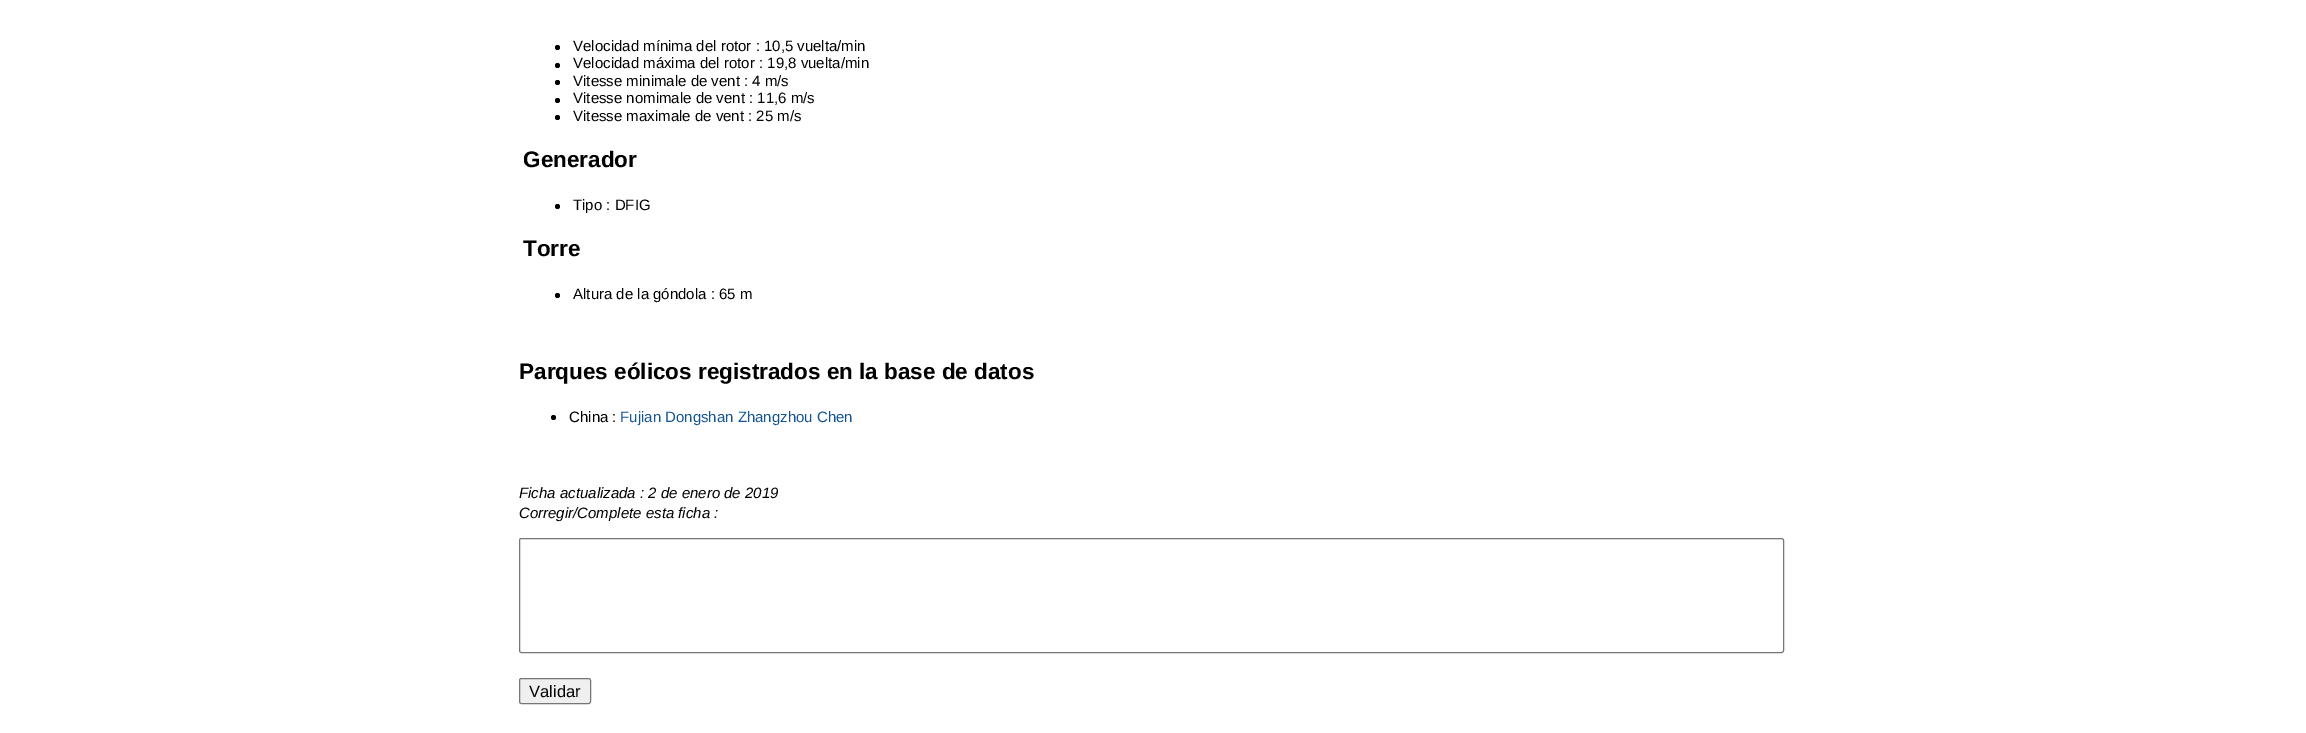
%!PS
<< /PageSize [2306 733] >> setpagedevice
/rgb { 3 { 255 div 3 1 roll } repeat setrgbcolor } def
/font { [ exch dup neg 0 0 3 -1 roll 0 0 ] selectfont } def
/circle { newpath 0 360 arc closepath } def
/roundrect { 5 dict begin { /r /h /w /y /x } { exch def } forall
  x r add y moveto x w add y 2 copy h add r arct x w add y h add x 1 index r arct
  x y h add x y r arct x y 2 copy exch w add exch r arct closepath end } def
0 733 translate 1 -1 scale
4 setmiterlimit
255 255 255 rgb
0 0 2306 733 rectfill
0 0 0 rgb
557.5 47.5 2.5 circle fill
557.5 65.5 2.5 circle fill
557.5 82.5 2.5 circle fill
557.5 100.5 2.5 circle fill
557.5 117.5 2.5 circle fill
557.5 206.5 2.5 circle fill
557.5 295.5 2.5 circle fill
553.5 417.5 2.5 circle fill
118 118 118 rgb
519.5 538.5 1264 114 2 roundrect stroke
239 239 239 rgb
519.5 678.5 71 25 2 roundrect gsave fill grestore
118 118 118 rgb
stroke
/LiberationSans-Regular 15 font
0 0 0 rgb
[
  [(Velocidad mínima del rotor : 10,5 vuelta/min) 573 51]
  [(Velocidad máxima del rotor : 19,8 vuelta/min) 573 68]
  [(Vitesse minimale de vent : 4 m/s) 573 86]
  [(Vitesse nomimale de vent : 11,6 m/s) 573 103]
  [(Vitesse maximale de vent : 25 m/s) 573 121]
] { aload pop moveto show } forall
/LiberationSans-Bold 22.5 font
523 167 moveto (Generador) show
/LiberationSans-Regular 15 font
573 210 moveto (Tipo : DFIG) show
/LiberationSans-Bold 22.5 font
523 256 moveto (Torre) show
/LiberationSans-Regular 15 font
573 299 moveto (Altura de la góndola : 65 m) show
/LiberationSans-Bold 22.5 font
519 379 moveto (Parques eólicos registrados en la base de datos) show
/LiberationSans-Regular 15 font
569 422 moveto (China :) show
20 85 149 rgb
620 422 moveto (Fujian Dongshan Zhangzhou Chen) show
/LiberationSans-Italic 15 font
0 0 0 rgb
519 498 moveto (Ficha actualizada : 2 de enero de 2019) show
519 518 moveto (Corregir/Complete esta ficha :) show
/LiberationSans-Regular 16.5 font
529 697 moveto (Validar) show
showpage
